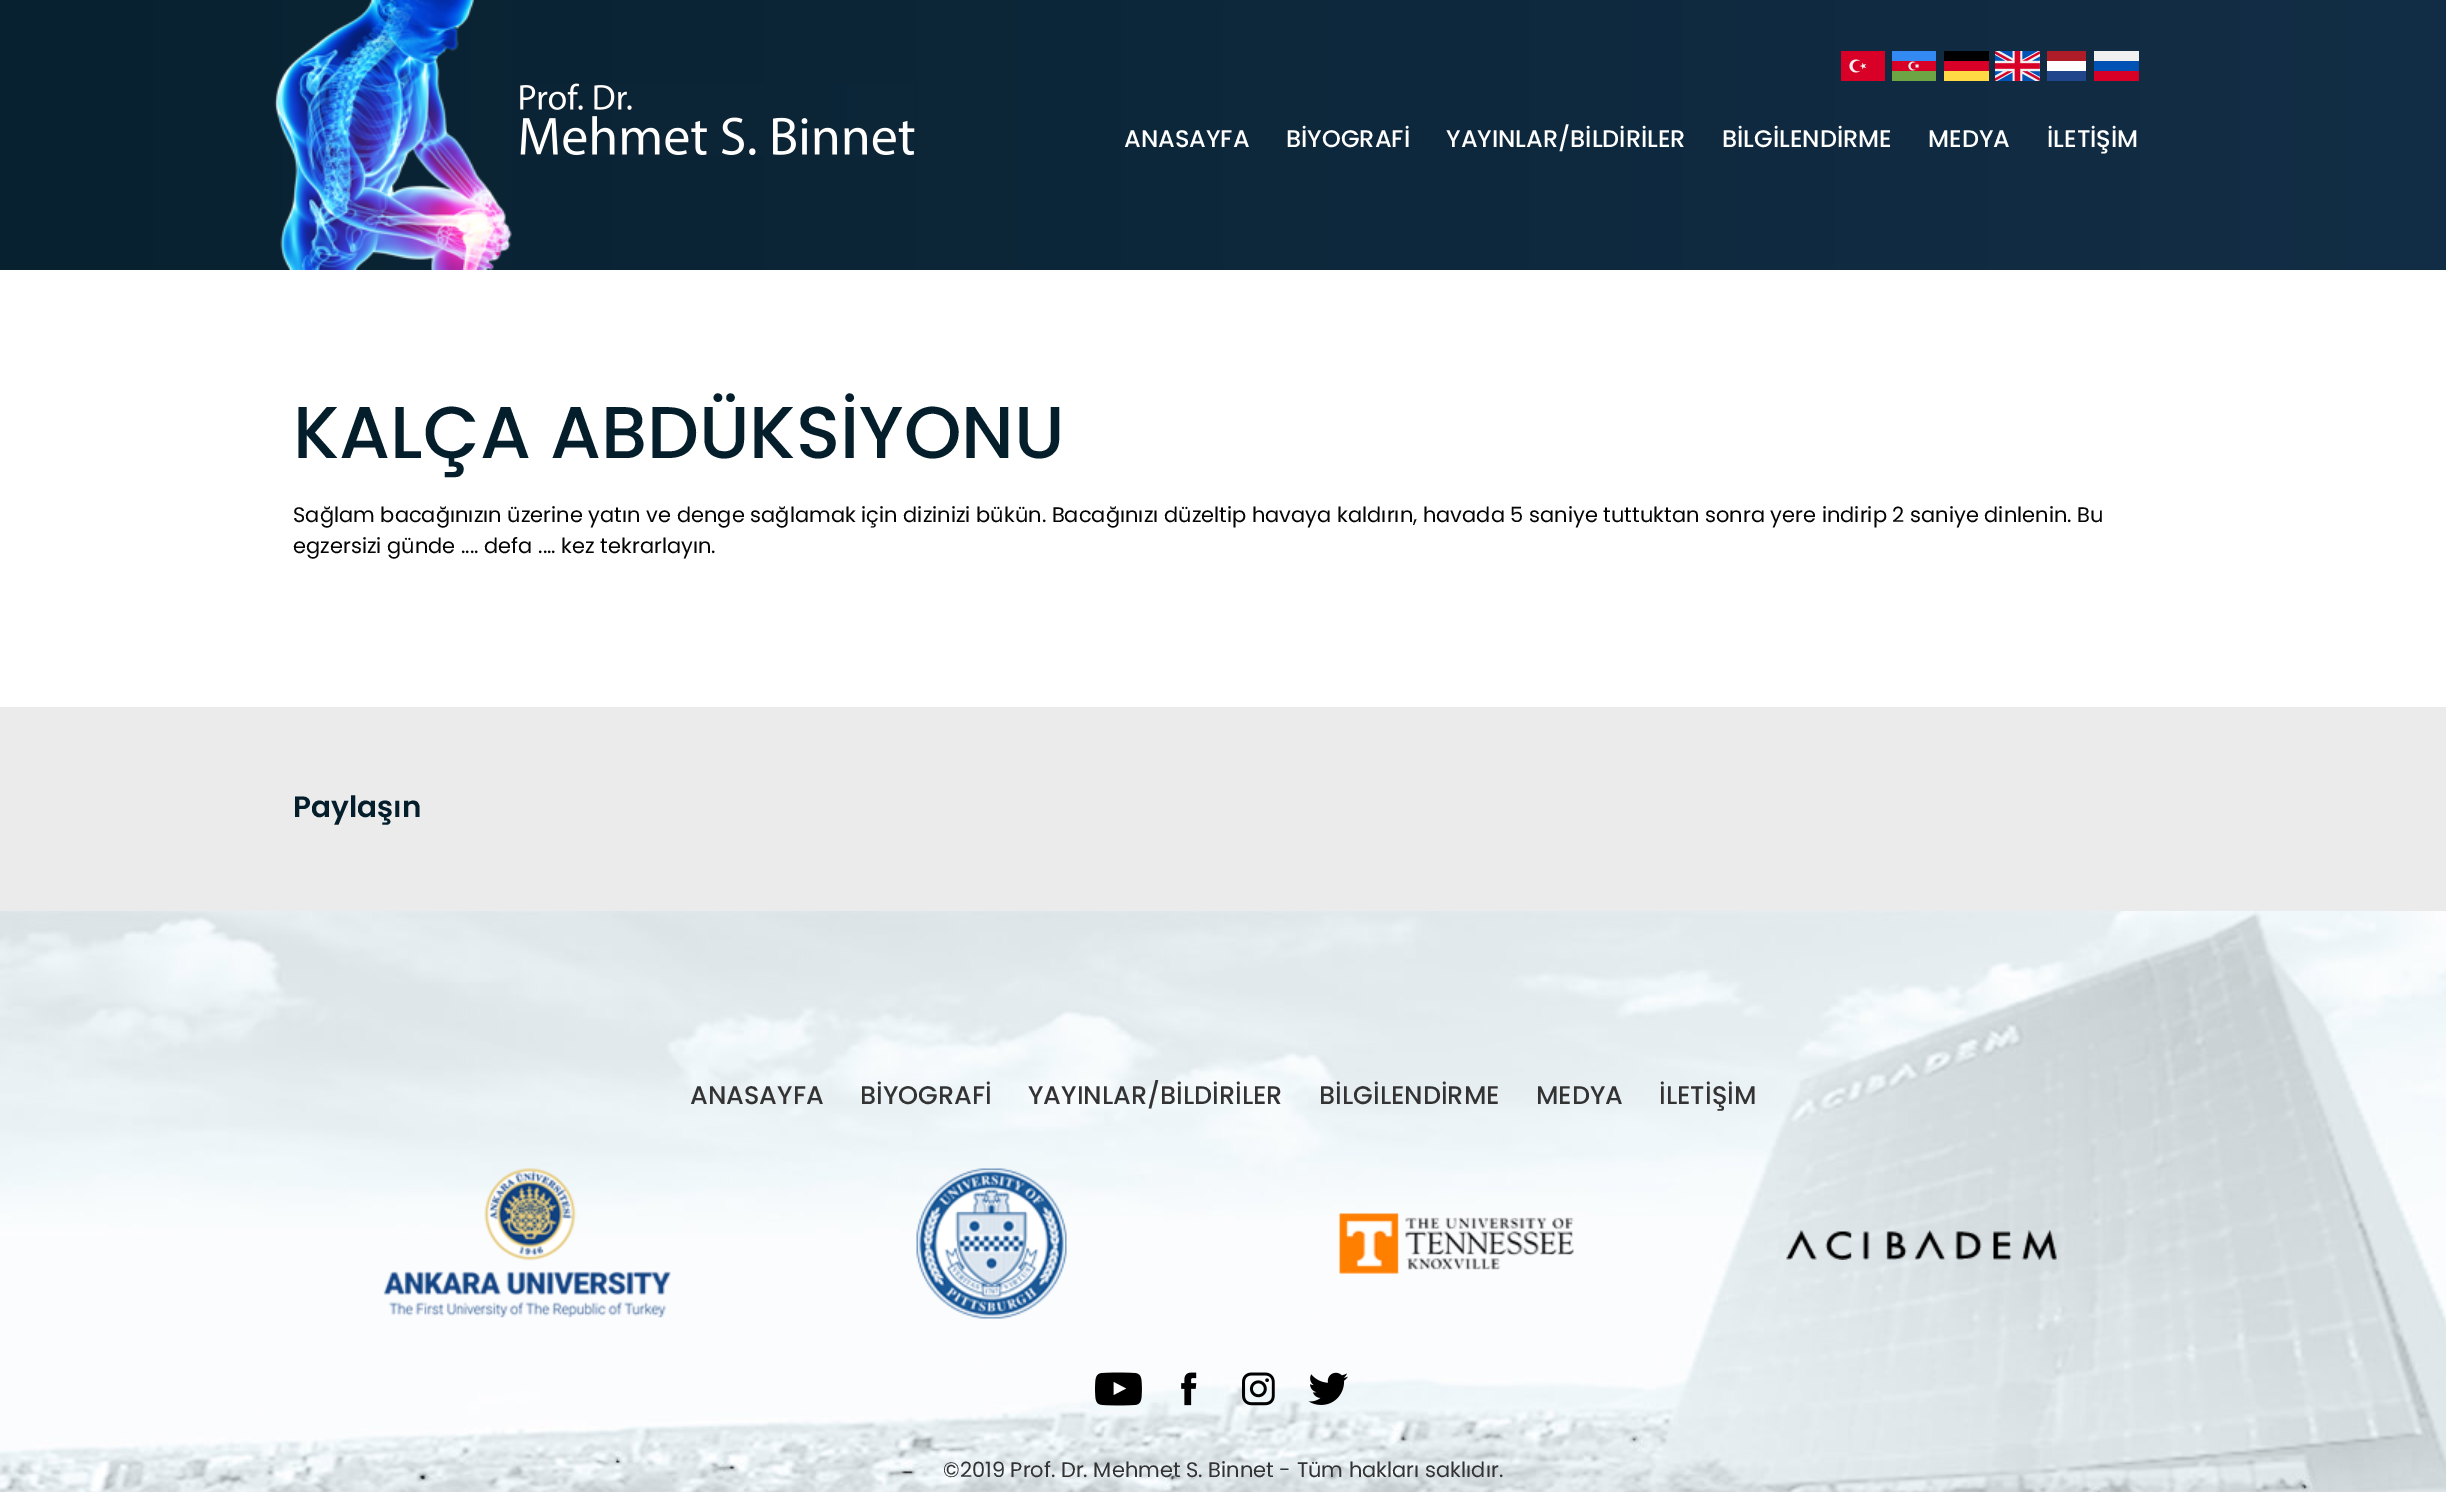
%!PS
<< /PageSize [2446 1492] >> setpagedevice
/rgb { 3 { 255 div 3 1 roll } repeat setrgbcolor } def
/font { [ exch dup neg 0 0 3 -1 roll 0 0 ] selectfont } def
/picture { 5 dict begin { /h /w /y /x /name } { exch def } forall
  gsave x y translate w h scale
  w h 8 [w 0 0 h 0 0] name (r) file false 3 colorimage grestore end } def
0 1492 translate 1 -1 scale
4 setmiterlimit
255 255 255 rgb
0 0 2446 1492 rectfill
gsave 0 0 moveto 2446 0 lineto 2446 270 lineto 0 270 lineto closepath clip newpath
<< /ShadingType 2 /ColorSpace /DeviceRGB /Coords [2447 135 0 135] /Extend [true true] /Function << /FunctionType 2 /Domain [0 1] /C0 [0.071 0.18 0.275] /C1 [0.031 0.129 0.188] /N 1 >> >> shfill grestore
(img/1.rgb) 274 0 238 270 picture
(img/2.rgb) 1841 51 44 30 picture
(img/3.rgb) 1892 51 44 30 picture
[
  [1944 51 45 10 0 0 0]
  [1944 61 45 10 216 0 39]
  [1944 71 45 10 255 218 68]
] { aload pop rgb rectfill } forall
(img/4.rgb) 1995 51 45 30 picture
[
  [2047 51 39 10 174 28 40]
  [2047 61 39 10 255 255 255]
  [2047 71 39 10 33 70 139]
  [2094 51 45 10 240 240 240]
  [2094 61 45 10 0 82 180]
  [2094 71 45 10 216 0 39]
] { aload pop rgb rectfill } forall
(img/5.rgb) 520 83 395 73 picture
235 235 235 rgb
0 707 2446 204 rectfill
(img/6.rgb) 0 911 2446 581 picture
(img/7.rgb) 383 1168 288 150 picture
(img/8.rgb) 916 1168 151 151 picture
(img/9.rgb) 1339 1213 235 61 picture
(img/10.rgb) 1786 1230 271 30 picture
(img/11.rgb) 1095 1372 47 34 picture
(img/12.rgb) 1181 1372 16 34 picture
(img/13.rgb) 1242 1372 33 34 picture
(img/14.rgb) 1308 1372 40 33 picture
/Poppins-Medium 24 font
255 255 255 rgb
[
  [(ANASAYFA) 1124 147]
  [(BİYOGRAFİ) 1286 147]
  [(YAYINLAR/BİLDİRİLER) 1446 147]
  [(BİLGİLENDİRME) 1722 147]
  [(MEDYA) 1928 147]
  [(İLETİŞİM) 2047 147]
] { aload pop moveto show } forall
/Poppins-Medium 73.25 font
5 30 43 rgb
293 458 moveto (KALÇA ABDÜKSİYONU) show
/Poppins-Regular 21 font
5 5 5 rgb
293 522 moveto (Sağlam bacağınızın üzerine yatın ve denge sağlamak için dizinizi bükün. Bacağınızı düzeltip havaya kaldırın, havada 5 saniye tuttuktan sonra yere indirip 2 saniye dinlenin. Bu) show
293 553 moveto (egzersizi günde .... defa .... kez tekrarlayın.) show
/Poppins-SemiBold 29.5 font
5 30 43 rgb
293 817 moveto (Paylaşın) show
/Poppins-Medium 25.5 font
51 51 51 rgb
[
  [(ANASAYFA) 690 1104]
  [(BİYOGRAFİ) 860 1104]
  [(YAYINLAR/BİLDİRİLER) 1028 1104]
  [(BİLGİLENDİRME) 1319 1104]
  [(MEDYA) 1536 1104]
  [(İLETİŞİM) 1659 1104]
] { aload pop moveto show } forall
/Poppins-Regular 21 font
943 1477 moveto (©2019 Prof. Dr. Mehmet S. Binnet - Tüm hakları saklıdır.) show
showpage
